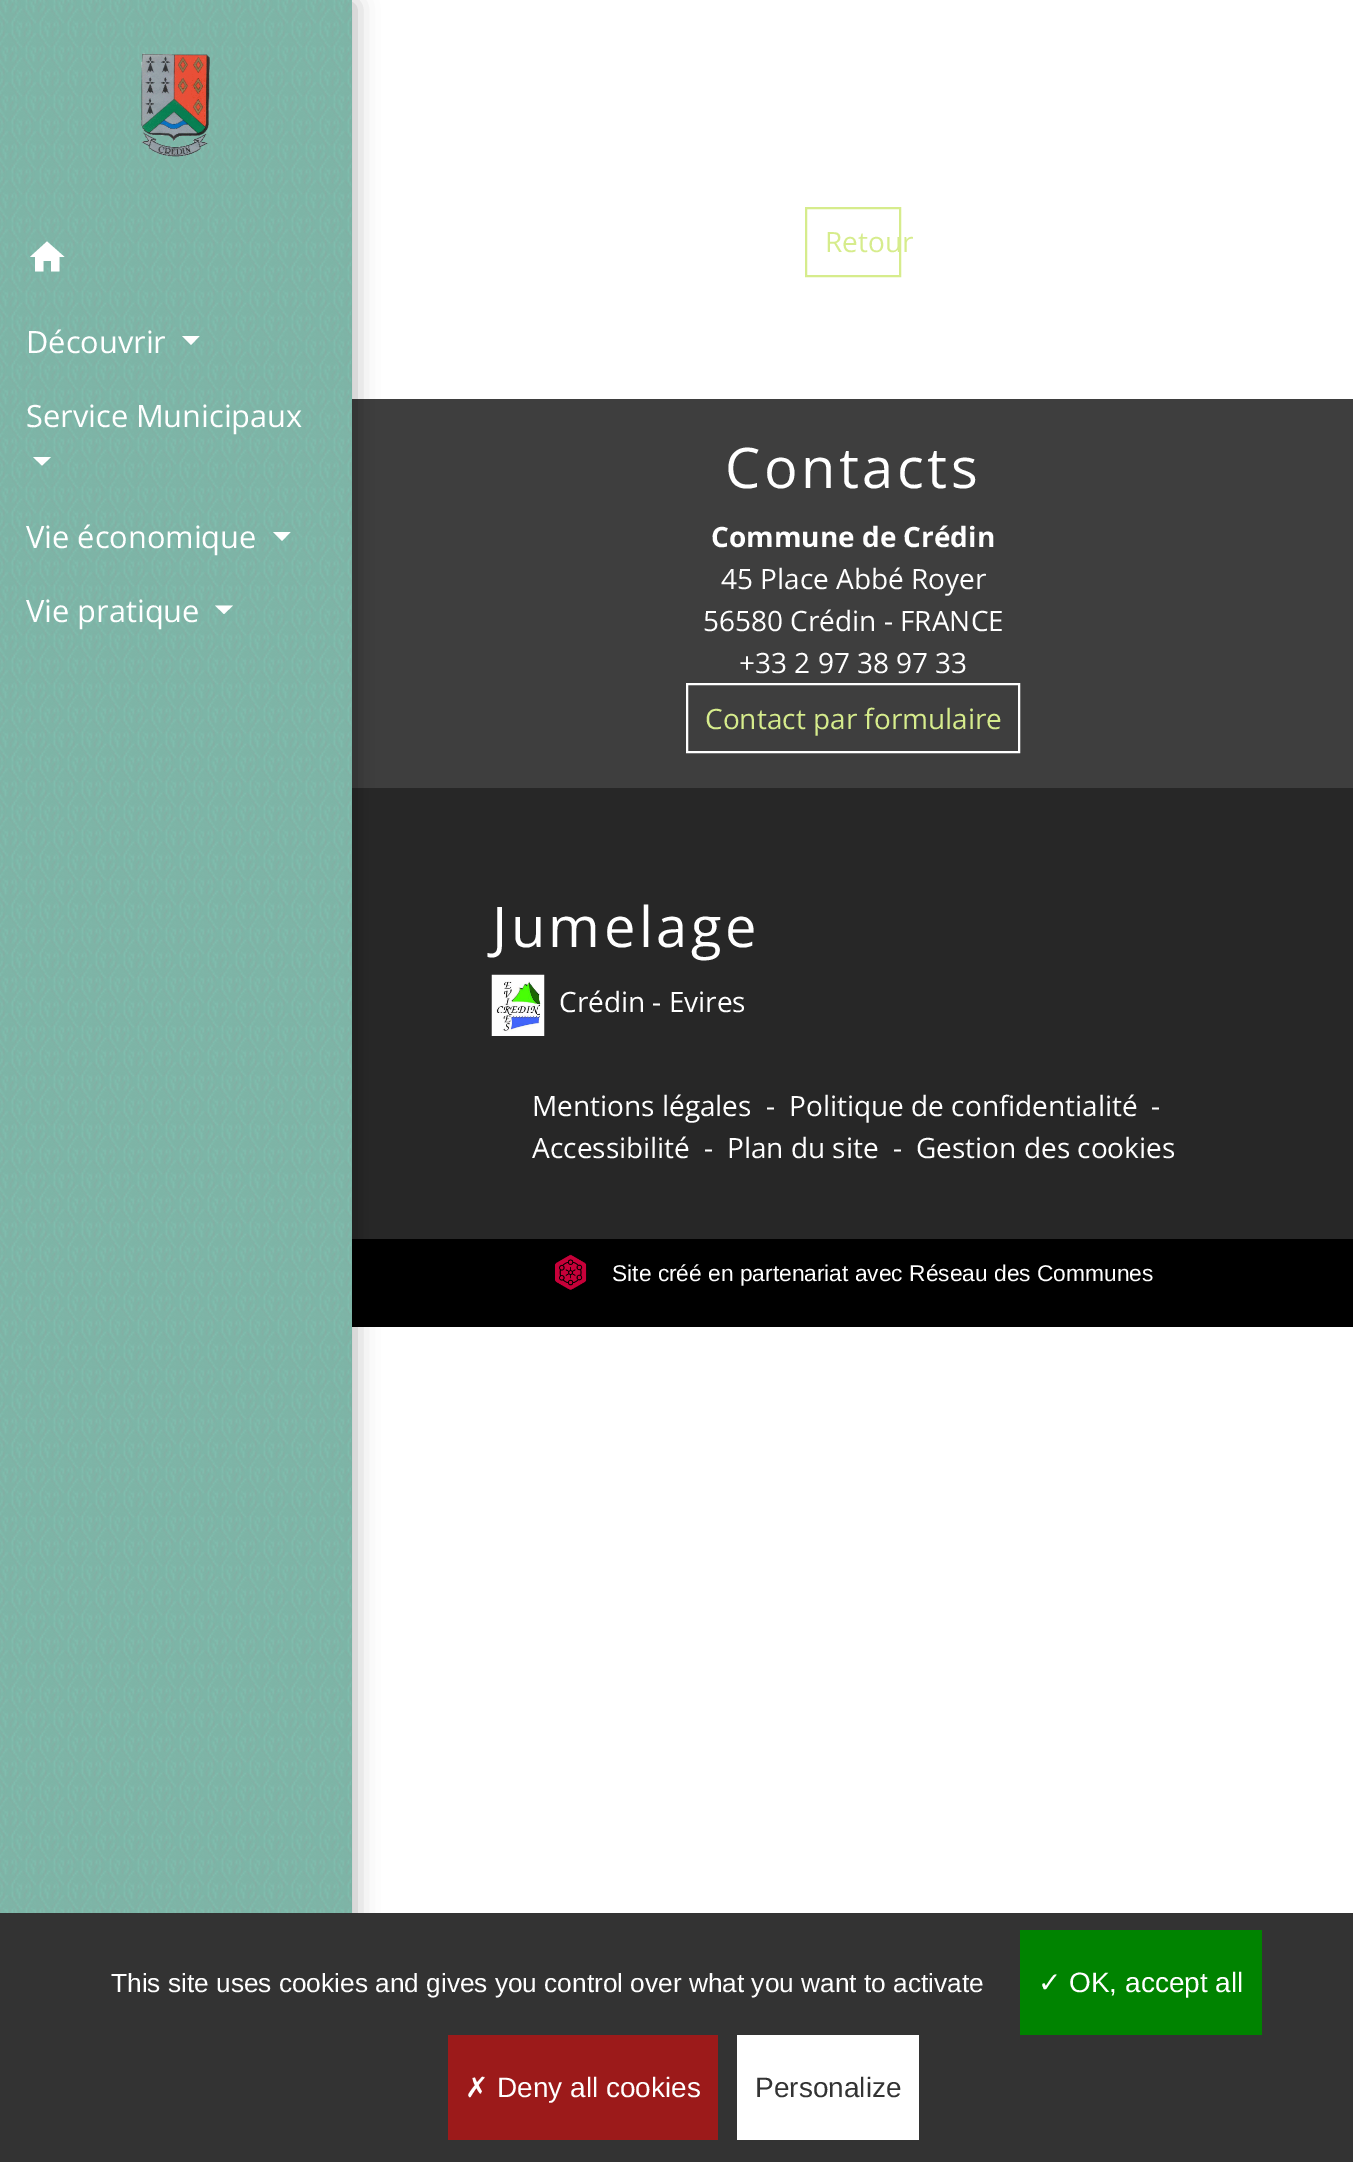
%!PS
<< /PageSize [1353 2162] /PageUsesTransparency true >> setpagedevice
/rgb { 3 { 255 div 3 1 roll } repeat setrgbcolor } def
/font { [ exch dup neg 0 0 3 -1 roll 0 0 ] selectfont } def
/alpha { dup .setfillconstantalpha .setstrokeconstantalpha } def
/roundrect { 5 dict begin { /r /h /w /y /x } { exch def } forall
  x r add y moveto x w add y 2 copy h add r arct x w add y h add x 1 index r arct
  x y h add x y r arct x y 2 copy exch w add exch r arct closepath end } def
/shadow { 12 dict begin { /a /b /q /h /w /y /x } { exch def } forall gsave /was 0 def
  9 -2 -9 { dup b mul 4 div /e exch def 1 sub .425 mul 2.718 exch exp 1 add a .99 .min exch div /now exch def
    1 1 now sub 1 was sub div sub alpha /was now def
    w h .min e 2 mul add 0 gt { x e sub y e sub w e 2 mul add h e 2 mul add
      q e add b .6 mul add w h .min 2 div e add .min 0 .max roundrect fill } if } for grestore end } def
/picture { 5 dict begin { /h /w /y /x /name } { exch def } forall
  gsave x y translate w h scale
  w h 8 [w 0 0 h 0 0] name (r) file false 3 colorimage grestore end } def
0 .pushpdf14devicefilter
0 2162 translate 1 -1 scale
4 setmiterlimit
255 255 255 rgb
0 0 1353 2162 rectfill
214 236 140 rgb
2 setlinewidth
806 208 94 68 rectstroke
[
  [352 399 1001 389 62 62 62]
  [352 788 1001 451 39 39 39]
  [352 1239 1001 88 0 0 0]
] { aload pop rgb rectfill } forall
gsave
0 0 moveto 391 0 lineto 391 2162 lineto 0 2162 lineto closepath 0 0 moveto 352 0 lineto 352 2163 lineto 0 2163 lineto closepath eoclip newpath
4 4 351 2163 0 11.5 0.3 shadow
grestore
0.7 alpha
73 160 138 rgb
0 0 352 1913 rectfill
1 alpha
(img/1.rgb) 0 0 352 1913 picture
(img/2.rgb) 141 53 69 104 picture
255 255 255 rgb
43.5 271.5 moveto 35 271.5 lineto 35 257 lineto 30 257 lineto 47 241.5 lineto 64.5 257 lineto 59.5 257 lineto 59.5 271.5 lineto 51 271.5 lineto 51 261 lineto 43.5 261 lineto closepath fill
182 336 moveto 199.5 336 lineto 191 345 lineto closepath fill
33 457 moveto 51 457 lineto 42 465.5 lineto closepath fill
273 532 moveto 290.5 532 lineto 282 541 lineto closepath fill
215 605.5 moveto 233 605.5 lineto 224 614 lineto closepath fill
687 684 332 68 rectstroke
(img/3.rgb) 491 974 54 62 picture
(img/4.rgb) 555 1254 32 36 picture
[
  [0 1913 1353 249 51 51 51]
  [1020 1930 242 105 0 131 0]
  [448 2035 270 105 156 26 26]
  [737 2035 182 105 255 255 255]
] { aload pop rgb rectfill } forall
/OpenSans-Regular 28 font
214 236 140 rgb
825 252 moveto (Retour) show
/OpenSans-Regular 30.75 font
255 255 255 rgb
[
  [(Découvrir) 26 353]
  [(Service Municipaux) 26 427]
  [(Vie économique) 26 548]
  [(Vie pratique) 26 622]
] { aload pop moveto show } forall
/OpenSans-Regular 56 font
725 488 moveto 3.5 0 (Contacts) ashow
/OpenSans-Bold 28 font
711 547 moveto (Commune de Crédin) show
/OpenSans-Regular 28 font
[
  [(45 Place Abbé Royer) 721 589]
  [(56580 Crédin - FRANCE) 703 631]
  [(+33 2 97 38 97 33) 739 673]
] { aload pop moveto show } forall
214 236 140 rgb
705 729 moveto (Contact par formulaire) show
/OpenSans-Regular 56 font
255 255 255 rgb
492 947 moveto 3.5 0 (Jumelage) ashow
/OpenSans-Regular 28 font
[
  [(Crédin - Evires) 559 1012]
  [(Mentions légales) 532 1116]
  [(-) 766 1116]
  [(Politique de confidentialité) 789 1116]
  [(-) 1151 1116]
  [(Accessibilité) 532 1158]
  [(-) 704 1158]
  [(Plan du site) 727 1158]
  [(-) 893 1158]
  [(Gestion des cookies) 916 1158]
] { aload pop moveto show } forall
/LiberationSans-Regular 22.75 font
612 1281 moveto (Site créé en partenariat avec Réseau des Communes) show
/LiberationSans-Regular 26.25 font
111 1992 moveto (This site uses cookies and gives you control over what you want to activate) show
/DejaVuSans-Regular 28 font
1038 1992 moveto (✓) show
/LiberationSans-Regular 28 font
1069 1992 moveto (OK, accept all) show
/DejaVuSans-Regular 28 font
465 2097 moveto (✗) show
/LiberationSans-Regular 28 font
497 2097 moveto (Deny all cookies) show
51 51 51 rgb
755 2097 moveto (Personalize) show
.poppdf14devicefilter showpage
